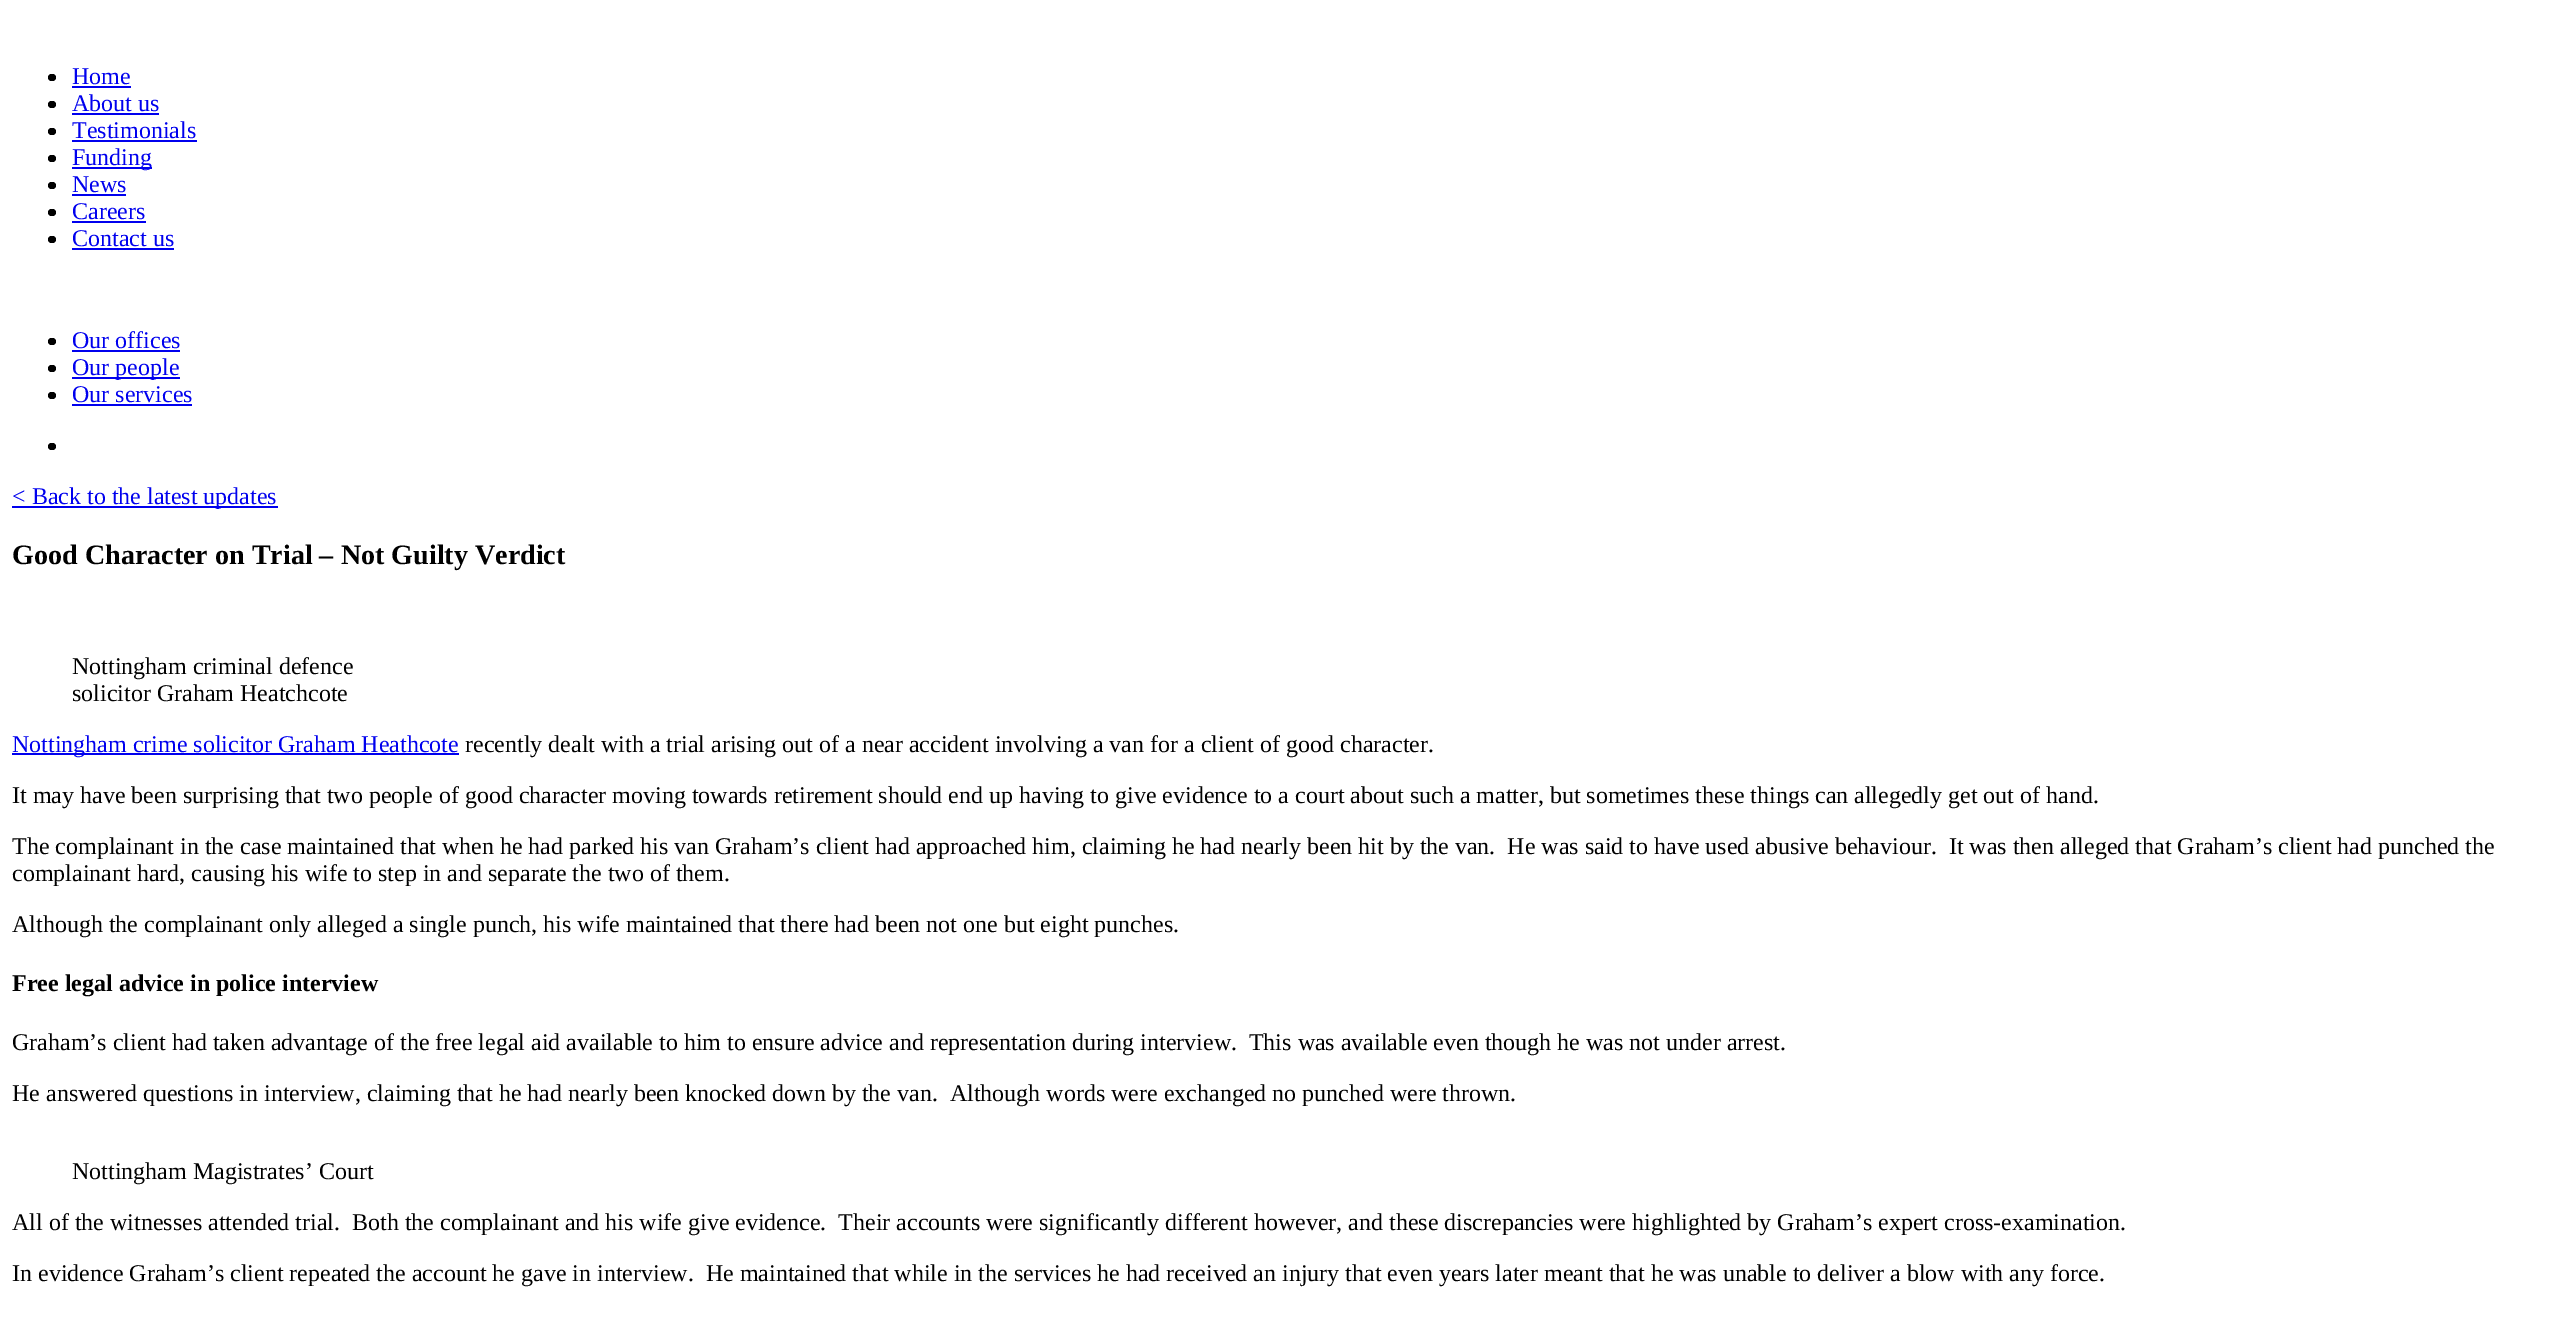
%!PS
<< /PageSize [2552 1319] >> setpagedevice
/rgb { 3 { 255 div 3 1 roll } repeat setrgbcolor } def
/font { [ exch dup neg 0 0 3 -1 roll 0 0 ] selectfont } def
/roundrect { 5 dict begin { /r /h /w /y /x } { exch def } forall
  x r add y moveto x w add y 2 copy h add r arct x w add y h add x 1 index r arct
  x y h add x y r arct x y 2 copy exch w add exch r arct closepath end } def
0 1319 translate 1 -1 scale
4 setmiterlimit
255 255 255 rgb
0 0 2552 1319 rectfill
0 0 0 rgb
48 74 8 7 3.5 roundrect fill
0 0 238 rgb
72 86 59 2 rectfill
0 0 0 rgb
48 101 8 7 3.5 roundrect fill
0 0 238 rgb
72 113 87 2 rectfill
0 0 0 rgb
48 128 8 7 3.5 roundrect fill
0 0 238 rgb
72 140 125 2 rectfill
0 0 0 rgb
48 155 8 7 3.5 roundrect fill
0 0 238 rgb
72 167 80 2 rectfill
0 0 0 rgb
48 182 8 7 3.5 roundrect fill
0 0 238 rgb
72 194 54 2 rectfill
0 0 0 rgb
48 209 8 7 3.5 roundrect fill
0 0 238 rgb
72 221 74 2 rectfill
0 0 0 rgb
48 236 8 7 3.5 roundrect fill
0 0 238 rgb
72 248 102 2 rectfill
0 0 0 rgb
48 338 8 7 3.5 roundrect fill
0 0 238 rgb
72 350 108 2 rectfill
0 0 0 rgb
48 365 8 7 3.5 roundrect fill
0 0 238 rgb
72 377 108 2 rectfill
0 0 0 rgb
48 392 8 7 3.5 roundrect fill
0 0 238 rgb
72 404 120 2 rectfill
0 0 0 rgb
48 443 8 7 3.5 roundrect fill
0 0 238 rgb
12 506 266 2 rectfill
12 753 447 2 rectfill
/LiberationSerif-Regular 24 font
[
  [(Home) 72 84]
  [(About us) 72 111]
  [(Testimonials) 72 138]
  [(Funding) 72 165]
  [(News) 72 192]
  [(Careers) 72 219]
  [(Contact us) 72 246]
  [(Our offices) 72 348]
  [(Our people) 72 375]
  [(Our services) 72 402]
  [(< Back to the latest updates) 12 504]
] { aload pop moveto show } forall
/LiberationSerif-Bold 28.1 font
0 0 0 rgb
12 564 moveto (Good Character on Trial – Not Guilty Verdict) show
/LiberationSerif-Regular 24 font
72 674 moveto (Nottingham criminal defence) show
72 701 moveto (solicitor Graham Heatchcote) show
0 0 238 rgb
12 752 moveto (Nottingham crime solicitor Graham Heathcote) show
0 0 0 rgb
[
  [(recently dealt with a trial arising out of a near accident involving a van for a client of good character.) 465 752]
  [(It may have been surprising that two people of good character moving towards retirement should end up having to give evidence to a court about such a matter, but sometimes these things can allegedly get out of hand.) 12 803]
  [(The complainant in the case maintained that when he had parked his van Graham’s client had approached him, claiming he had nearly been hit by the van.  He was said to have used abusive behaviour.  It was then alleged that Graham’s client had punched the) 12 854]
  [(complainant hard, causing his wife to step in and separate the two of them.) 12 881]
  [(Although the complainant only alleged a single punch, his wife maintained that there had been not one but eight punches.) 12 932]
] { aload pop moveto show } forall
/LiberationSerif-Bold 24 font
12 991 moveto (Free legal advice in police interview) show
/LiberationSerif-Regular 24 font
[
  [(Graham’s client had taken advantage of the free legal aid available to him to ensure advice and representation during interview.  This was available even though he was not under arrest.) 12 1050]
  [(He answered questions in interview, claiming that he had nearly been knocked down by the van.  Although words were exchanged no punched were thrown.) 12 1101]
  [(Nottingham Magistrates’ Court) 72 1179]
  [(All of the witnesses attended trial.  Both the complainant and his wife give evidence.  Their accounts were significantly different however, and these discrepancies were highlighted by Graham’s expert cross-examination.) 12 1230]
  [(In evidence Graham’s client repeated the account he gave in interview.  He maintained that while in the services he had received an injury that even years later meant that he was unable to deliver a blow with any force.) 12 1281]
] { aload pop moveto show } forall
showpage
